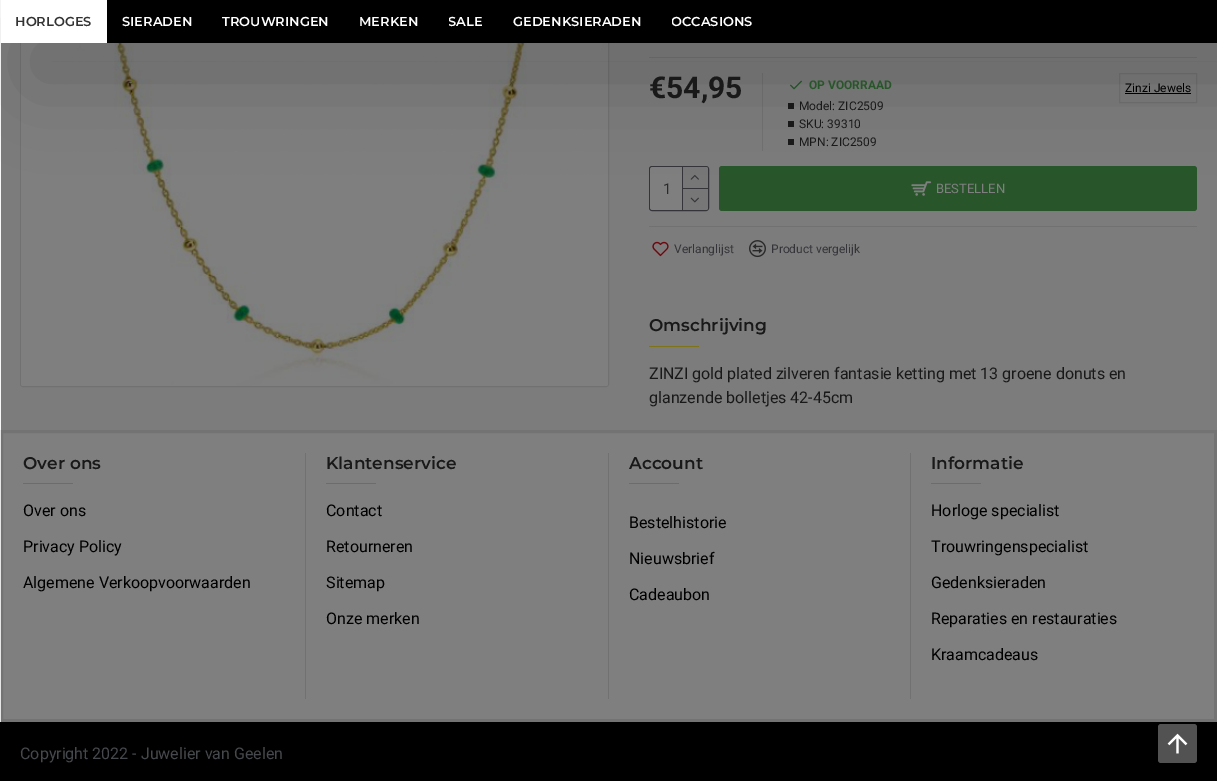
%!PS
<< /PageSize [1217 781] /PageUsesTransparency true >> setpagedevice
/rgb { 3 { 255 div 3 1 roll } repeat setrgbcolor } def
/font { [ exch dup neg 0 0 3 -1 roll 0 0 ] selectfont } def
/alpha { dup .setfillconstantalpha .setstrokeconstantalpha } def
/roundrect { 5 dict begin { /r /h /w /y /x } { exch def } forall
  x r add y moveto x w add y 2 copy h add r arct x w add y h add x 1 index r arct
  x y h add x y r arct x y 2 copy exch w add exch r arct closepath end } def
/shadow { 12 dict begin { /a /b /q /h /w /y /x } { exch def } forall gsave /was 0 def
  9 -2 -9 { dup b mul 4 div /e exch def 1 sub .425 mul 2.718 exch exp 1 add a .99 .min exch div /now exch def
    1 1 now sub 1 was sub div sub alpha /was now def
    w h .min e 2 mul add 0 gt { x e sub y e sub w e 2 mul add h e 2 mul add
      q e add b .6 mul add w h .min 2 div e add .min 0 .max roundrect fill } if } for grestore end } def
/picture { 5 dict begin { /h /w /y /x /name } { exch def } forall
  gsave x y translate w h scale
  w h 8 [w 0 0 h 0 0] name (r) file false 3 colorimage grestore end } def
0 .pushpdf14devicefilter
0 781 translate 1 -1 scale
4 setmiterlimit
248 248 248 rgb
0 0 1217 781 rectfill
226 226 226 rgb
20.5 -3.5 588 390 2.5 roundrect stroke
(img/1.rgb) 21 43 587 343 picture
649 57 548 1 rectfill
762 73 1 78 rectfill
(img/2.rgb) 790 80 12 10 picture
[
  [788 103 6 6 51 51 51]
  [788 121 6 6 51 51 51]
  [788 139 6 6 51 51 51]
] { aload pop rgb rectfill } forall
226 226 226 rgb
1119.5 73.5 77 29 rectstroke
0 0 0 rgb
1125 93 66 1 rectfill
105 105 115 rgb
649.5 166.5 59 44 2.5 roundrect stroke
gsave
650 167 58 43 2 roundrect clip newpath
255 255 255 rgb
650 167 58 43 3 roundrect fill
grestore
682 167 1 43 rectfill
238 238 238 rgb
683 167 moveto 706 167 lineto 707 167 708 168 708 169 curveto 708 188 lineto 683 188 lineto closepath fill
105 105 115 rgb
683 188 25 1 rectfill
(img/3.rgb) 690 174 9 6 picture
238 238 238 rgb
683 189 moveto 708 189 lineto 708 208 lineto 708 209 707 210 706 210 curveto 683 210 lineto closepath fill
(img/4.rgb) 690 197 9 6 picture
80 173 85 rgb
719 166 478 45 3 roundrect fill
(img/5.rgb) 911 181 21 15 picture
0 0 0 rgb
41 50 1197 23 0 45 0.2 shadow
[
  [107 0 1110 43 0 0 0]
  [1 0 106 43 255 255 255]
  [649 226 548 1 226 226 226]
] { aload pop rgb rectfill } forall
(img/6.rgb) 652 241 17 16 picture
(img/7.rgb) 749 240 17 18 picture
255 231 51 rgb
649 346 50 1 rectfill
255 255 255 rgb
1.5 431.5 moveto 1215.5 431.5 lineto 1215.5 720.5 lineto 1.5 720.5 lineto closepath gsave fill grestore
230 230 230 rgb
3 setlinewidth
stroke
[
  [305 453 1 246 226 226 226]
  [23 483 50 1 255 231 51]
  [608 453 1 246 226 226 226]
  [326 483 50 1 255 231 51]
  [910 453 1 246 226 226 226]
  [629 483 50 1 255 231 51]
  [931 483 50 1 255 231 51]
  [0 722 1217 59 0 0 0]
] { aload pop rgb rectfill } forall
/Montserrat-SemiBold 13 font
51 51 51 rgb
15 26 moveto (HORLOGES) show
255 255 255 rgb
[
  [(SIERADEN) 122 26]
  [(TROUWRINGEN) 222 26]
  [(MERKEN) 359 26]
] { aload pop moveto show } forall
gsave
449 12 34 19 rectclip
448 26 moveto (SALE) show
grestore
513 26 moveto (GEDENKSIERADEN) show
gsave
672 12 81 19 rectclip
671 26 moveto (OCCASIONS) show
grestore
/Roboto-Bold 30 font
51 51 51 rgb
649 98 moveto (€54,95) show
/Roboto-Bold 12 font
80 173 85 rgb
809 89 moveto (OP VOORRAAD) show
/Roboto-Regular 12 font
51 51 51 rgb
[
  [(Model: ZIC2509) 799 110]
  [(SKU: 39310) 799 128]
  [(MPN: ZIC2509) 799 146]
] { aload pop moveto show } forall
0 0 0 rgb
1125 92 moveto (Zinzi Jewels) show
/Roboto-Regular 15 font
85 85 85 rgb
663 194 moveto (1) show
/Roboto-Regular 13 font
255 255 255 rgb
936 193 moveto (BESTELLEN) show
/Roboto-Regular 12 font
105 105 115 rgb
674 253 moveto (Verlanglijst) show
771 253 moveto (Product vergelijk) show
/Montserrat-SemiBold 17 font
51 51 51 rgb
649 331 moveto (Omschrijving) show
/Roboto-Regular 16 font
649 379 moveto (ZINZI gold plated zilveren fantasie ketting met 13 groene donuts en) show
649 403 moveto (glanzende bolletjes 42-45cm) show
/Montserrat-SemiBold 17 font
23 469 moveto (Over ons) show
/Roboto-Regular 16 font
0 0 0 rgb
[
  [(Over ons) 23 516]
  [(Privacy Policy) 23 552]
  [(Algemene Verkoopvoorwaarden) 23 588]
] { aload pop moveto show } forall
/Montserrat-SemiBold 17 font
51 51 51 rgb
326 469 moveto (Klantenservice) show
/Roboto-Regular 16 font
0 0 0 rgb
[
  [(Contact) 326 516]
  [(Retourneren) 326 552]
  [(Sitemap) 326 588]
  [(Onze merken) 326 624]
] { aload pop moveto show } forall
/Montserrat-SemiBold 17 font
51 51 51 rgb
629 469 moveto (Account) show
/Roboto-Regular 16 font
0 0 0 rgb
[
  [(Bestelhistorie) 629 528]
  [(Nieuwsbrief) 629 564]
  [(Cadeaubon) 629 600]
] { aload pop moveto show } forall
/Montserrat-SemiBold 17 font
51 51 51 rgb
931 469 moveto (Informatie) show
/Roboto-Regular 16 font
0 0 0 rgb
[
  [(Horloge specialist) 931 516]
  [(Trouwringenspecialist) 931 552]
  [(Gedenksieraden) 931 588]
  [(Reparaties en restauraties) 931 624]
  [(Kraamcadeaus) 931 660]
] { aload pop moveto show } forall
139 145 152 rgb
20 759 moveto (Copyright 2022 - Juwelier van Geelen) show
0.5 alpha
0 0 0 rgb
1 43 1216 720 rectfill
1 alpha
82 82 82 rgb
1158 724 39 39 3 roundrect fill
(img/8.rgb) 1167 733 21 21 picture
.poppdf14devicefilter showpage
